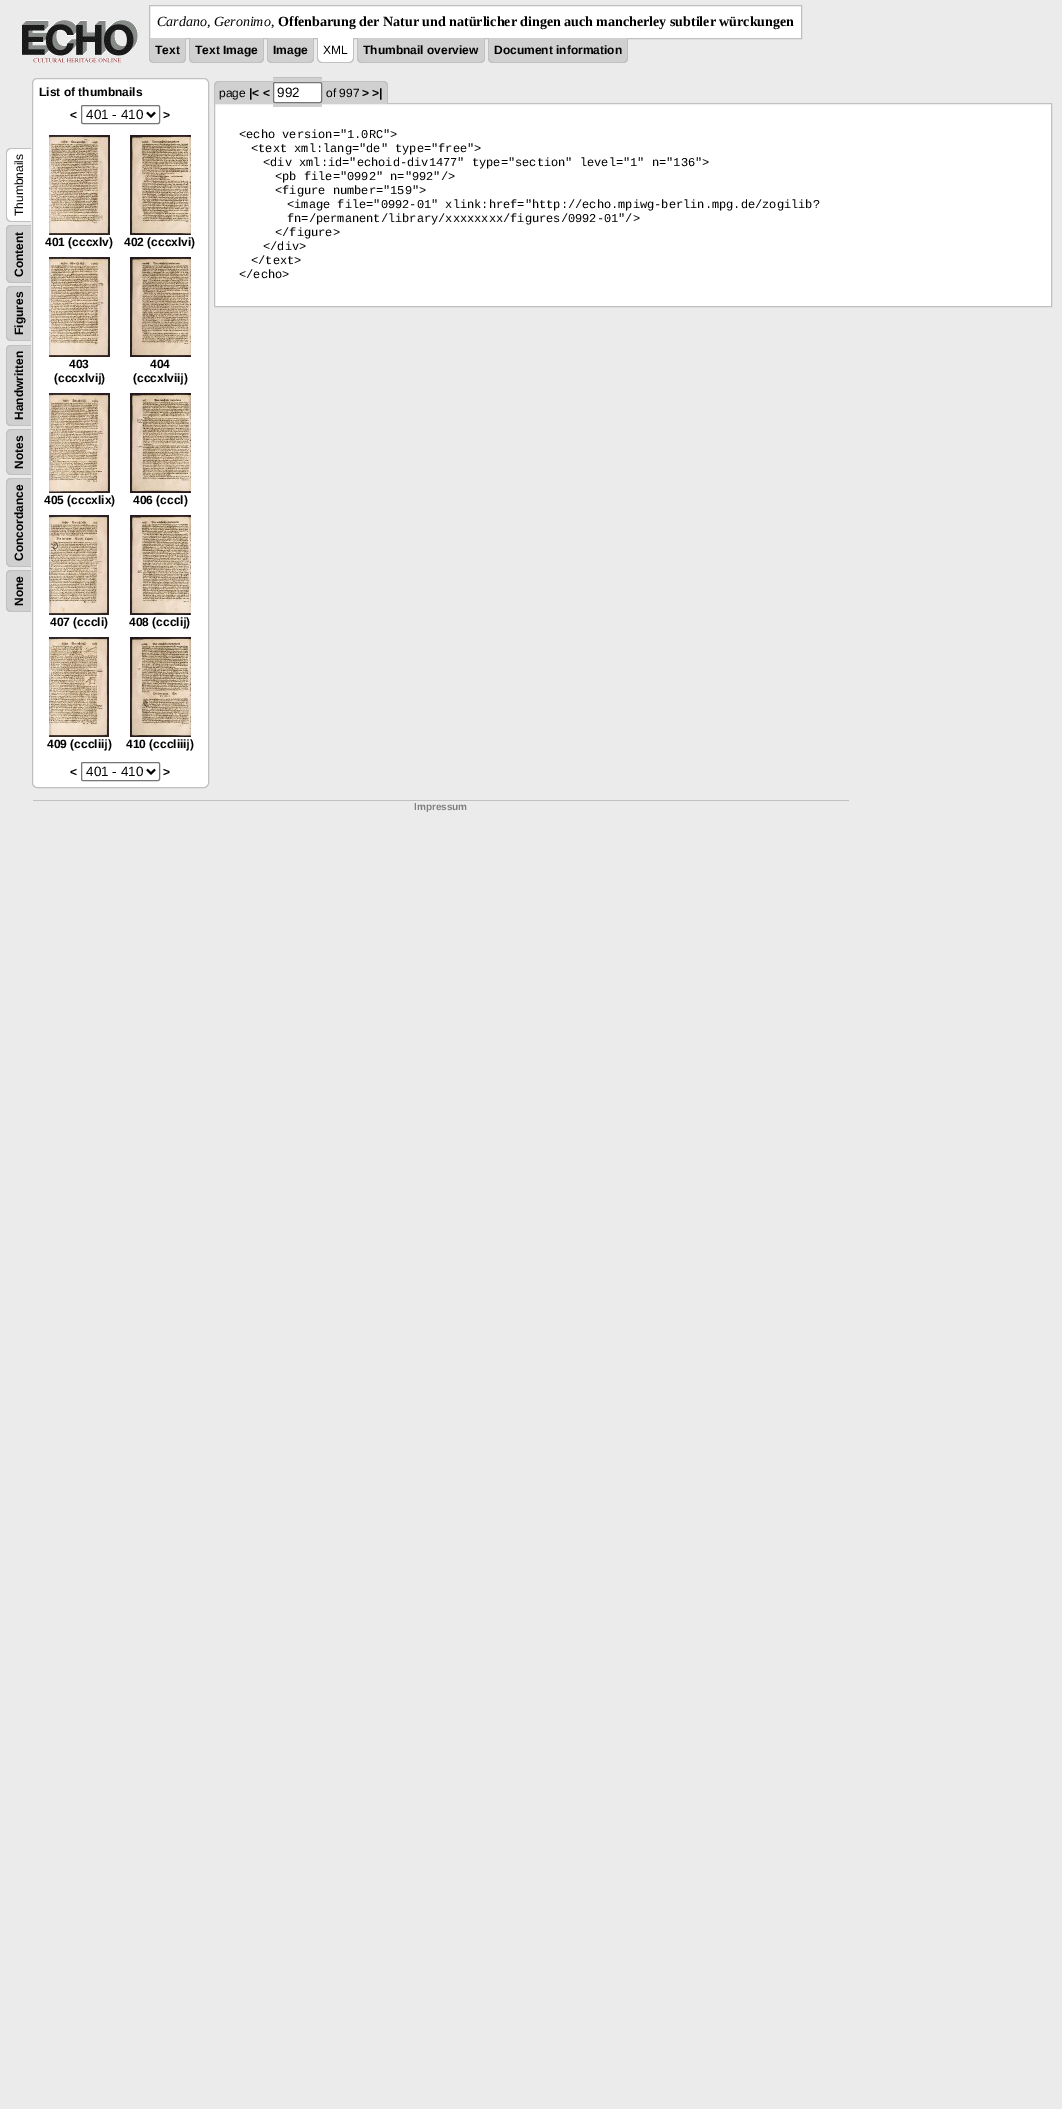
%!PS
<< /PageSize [1062 2109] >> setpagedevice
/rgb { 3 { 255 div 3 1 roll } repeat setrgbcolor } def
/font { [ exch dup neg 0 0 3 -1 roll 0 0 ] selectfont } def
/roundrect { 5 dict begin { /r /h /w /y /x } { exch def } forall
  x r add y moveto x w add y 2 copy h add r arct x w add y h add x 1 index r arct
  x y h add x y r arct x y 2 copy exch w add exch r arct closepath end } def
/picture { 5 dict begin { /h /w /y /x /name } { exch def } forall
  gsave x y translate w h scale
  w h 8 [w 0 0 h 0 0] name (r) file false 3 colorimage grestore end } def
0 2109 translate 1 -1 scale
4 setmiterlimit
235 235 235 rgb
0 0 1062 2109 rectfill
(img/1.rgb) 22 20 116 43 picture
255 255 255 rgb
149.5 5.5 moveto 801.5 5.5 lineto 801.5 38.5 lineto 149.5 38.5 lineto closepath gsave fill grestore
192 192 192 rgb
stroke
208 208 208 rgb
149 38 moveto 186 38 lineto 186 58 lineto 186 61 184 63 181 63 curveto 154 63 lineto 151 63 149 61 149 58 curveto closepath fill
192 192 192 rgb
149 38 moveto 186 38 lineto 186 58 lineto 186 61 184 63 181 63 curveto 154 63 lineto 151 63 149 61 149 58 curveto closepath 150 38 moveto 185 38 lineto 185 58 lineto 185 60 183 62 181 62 curveto 154 62 lineto 152 62 150 60 150 58 curveto closepath eofill
208 208 208 rgb
189 38 moveto 264 38 lineto 264 58 lineto 264 61 262 63 259 63 curveto 194 63 lineto 191 63 189 61 189 58 curveto closepath fill
192 192 192 rgb
189 38 moveto 264 38 lineto 264 58 lineto 264 61 262 63 259 63 curveto 194 63 lineto 191 63 189 61 189 58 curveto closepath 190 38 moveto 263 38 lineto 263 58 lineto 263 60 261 62 259 62 curveto 194 62 lineto 192 62 190 60 190 58 curveto closepath eofill
208 208 208 rgb
267 38 moveto 314 38 lineto 314 58 lineto 314 61 312 63 309 63 curveto 272 63 lineto 269 63 267 61 267 58 curveto closepath fill
192 192 192 rgb
267 38 moveto 314 38 lineto 314 58 lineto 314 61 312 63 309 63 curveto 272 63 lineto 269 63 267 61 267 58 curveto closepath 268 38 moveto 313 38 lineto 313 58 lineto 313 60 311 62 309 62 curveto 272 62 lineto 270 62 268 60 268 58 curveto closepath eofill
255 255 255 rgb
317 38 moveto 354 38 lineto 354 58 lineto 354 61 352 63 349 63 curveto 322 63 lineto 319 63 317 61 317 58 curveto closepath fill
192 192 192 rgb
317 38 moveto 354 38 lineto 354 58 lineto 354 61 352 63 349 63 curveto 322 63 lineto 319 63 317 61 317 58 curveto closepath 318 38 moveto 353 38 lineto 353 58 lineto 353 60 351 62 349 62 curveto 322 62 lineto 320 62 318 60 318 58 curveto closepath eofill
208 208 208 rgb
357 38 moveto 485 38 lineto 485 58 lineto 485 61 483 63 480 63 curveto 362 63 lineto 359 63 357 61 357 58 curveto closepath fill
192 192 192 rgb
357 38 moveto 485 38 lineto 485 58 lineto 485 61 483 63 480 63 curveto 362 63 lineto 359 63 357 61 357 58 curveto closepath 358 38 moveto 484 38 lineto 484 58 lineto 484 60 482 62 480 62 curveto 362 62 lineto 360 62 358 60 358 58 curveto closepath eofill
208 208 208 rgb
488 38 moveto 628 38 lineto 628 58 lineto 628 61 626 63 623 63 curveto 493 63 lineto 490 63 488 61 488 58 curveto closepath fill
192 192 192 rgb
488 38 moveto 628 38 lineto 628 58 lineto 628 61 626 63 623 63 curveto 493 63 lineto 490 63 488 61 488 58 curveto closepath 489 38 moveto 627 38 lineto 627 58 lineto 627 60 625 62 623 62 curveto 493 62 lineto 491 62 489 60 489 58 curveto closepath eofill
255 255 255 rgb
6 217 moveto 6 153 lineto 6 150 8 148 11 148 curveto 31 148 lineto 31 222 lineto 11 222 lineto 8 222 6 220 6 217 curveto closepath fill
192 192 192 rgb
6 217 moveto 6 153 lineto 6 150 8 148 11 148 curveto 31 148 lineto 31 222 lineto 11 222 lineto 8 222 6 220 6 217 curveto closepath 7 217 moveto 7 153 lineto 7 151 9 149 11 149 curveto 31 149 lineto 31 221 lineto 11 221 lineto 9 221 7 219 7 217 curveto closepath eofill
208 208 208 rgb
6 278 moveto 6 230 lineto 6 227 8 225 11 225 curveto 31 225 lineto 31 283 lineto 11 283 lineto 8 283 6 280 6 278 curveto closepath fill
192 192 192 rgb
6 278 moveto 6 230 lineto 6 227 8 225 11 225 curveto 31 225 lineto 31 283 lineto 11 283 lineto 8 283 6 280 6 278 curveto closepath 7 278 moveto 7 230 lineto 7 228 9 226 11 226 curveto 31 226 lineto 31 282 lineto 11 282 lineto 9 282 7 280 7 278 curveto closepath eofill
208 208 208 rgb
6 336 moveto 6 291 lineto 6 288 8 286 11 286 curveto 31 286 lineto 31 341 lineto 11 341 lineto 8 341 6 339 6 336 curveto closepath fill
192 192 192 rgb
6 336 moveto 6 291 lineto 6 288 8 286 11 286 curveto 31 286 lineto 31 341 lineto 11 341 lineto 8 341 6 339 6 336 curveto closepath 7 336 moveto 7 291 lineto 7 289 9 287 11 287 curveto 31 287 lineto 31 340 lineto 11 340 lineto 9 340 7 338 7 336 curveto closepath eofill
208 208 208 rgb
6 421 moveto 6 350 lineto 6 347 8 345 11 345 curveto 31 345 lineto 31 426 lineto 11 426 lineto 8 426 6 424 6 421 curveto closepath fill
192 192 192 rgb
6 421 moveto 6 350 lineto 6 347 8 345 11 345 curveto 31 345 lineto 31 426 lineto 11 426 lineto 8 426 6 424 6 421 curveto closepath 7 421 moveto 7 350 lineto 7 347 9 346 11 346 curveto 31 346 lineto 31 425 lineto 11 425 lineto 9 425 7 423 7 421 curveto closepath eofill
208 208 208 rgb
6 470 moveto 6 434 lineto 6 432 8 429 11 429 curveto 31 429 lineto 31 475 lineto 11 475 lineto 8 475 6 472 6 470 curveto closepath fill
192 192 192 rgb
6 470 moveto 6 434 lineto 6 432 8 429 11 429 curveto 31 429 lineto 31 475 lineto 11 475 lineto 8 475 6 472 6 470 curveto closepath 7 470 moveto 7 434 lineto 7 432 9 430 11 430 curveto 31 430 lineto 31 474 lineto 11 474 lineto 9 474 7 472 7 470 curveto closepath eofill
208 208 208 rgb
6 562 moveto 6 483 lineto 6 480 8 478 11 478 curveto 31 478 lineto 31 567 lineto 11 567 lineto 8 567 6 564 6 562 curveto closepath fill
192 192 192 rgb
6 562 moveto 6 483 lineto 6 480 8 478 11 478 curveto 31 478 lineto 31 567 lineto 11 567 lineto 8 567 6 564 6 562 curveto closepath 7 562 moveto 7 483 lineto 7 481 9 479 11 479 curveto 31 479 lineto 31 566 lineto 11 566 lineto 9 566 7 564 7 562 curveto closepath eofill
208 208 208 rgb
6 607 moveto 6 575 lineto 6 572 8 570 11 570 curveto 31 570 lineto 31 612 lineto 11 612 lineto 8 612 6 610 6 607 curveto closepath fill
192 192 192 rgb
6 607 moveto 6 575 lineto 6 572 8 570 11 570 curveto 31 570 lineto 31 612 lineto 11 612 lineto 8 612 6 610 6 607 curveto closepath 7 607 moveto 7 575 lineto 7 573 9 571 11 571 curveto 31 571 lineto 31 611 lineto 11 611 lineto 9 611 7 609 7 607 curveto closepath eofill
255 255 255 rgb
32.5 78.5 176 709 4.5 roundrect gsave fill grestore
192 192 192 rgb
stroke
118 118 118 rgb
81.5 105.5 78 18 1.5 roundrect stroke
0 0 0 rgb
2 setlinewidth
147 112.5 moveto 151 116.5 lineto 155 112.5 lineto stroke
(img/2.rgb) 49 135 61 100 picture
(img/3.rgb) 130 135 61 100 picture
(img/4.rgb) 49 257 61 100 picture
(img/5.rgb) 130 257 61 100 picture
(img/6.rgb) 49 393 61 100 picture
(img/7.rgb) 130 393 61 100 picture
(img/8.rgb) 49 515 60 100 picture
(img/9.rgb) 130 515 61 100 picture
(img/10.rgb) 49 637 60 100 picture
(img/11.rgb) 130 637 61 100 picture
118 118 118 rgb
1 setlinewidth
81.5 762.5 78 18 1.5 roundrect stroke
0 0 0 rgb
2 setlinewidth
147 769.5 moveto 151 773.5 lineto 155 769.5 lineto stroke
255 255 255 rgb
214.5 103.5 moveto 1051.5 103.5 lineto 1051.5 306.5 lineto 214.5 306.5 lineto closepath gsave fill grestore
192 192 192 rgb
1 setlinewidth
stroke
208 208 208 rgb
219 81 moveto 249 81 lineto 249 104 lineto 214 104 lineto 214 86 lineto 214 83 216 81 219 81 curveto closepath fill
192 192 192 rgb
219 81 moveto 249 81 lineto 249 104 lineto 214 104 lineto 214 86 lineto 214 83 216 81 219 81 curveto closepath 219 82 moveto 249 82 lineto 249 104 lineto 215 104 lineto 215 86 lineto 215 84 217 82 219 82 curveto closepath eofill
[
  [249 82 10 22 208 208 208]
  [249 81 10 1 192 192 192]
  [259 81 14 23 208 208 208]
  [259 81 14 1 192 192 192]
  [273 78 49 29 208 208 208]
  [273 77 49 1 192 192 192]
  [322 81 4 23 208 208 208]
  [322 81 40 1 192 192 192]
  [326 82 36 22 208 208 208]
  [362 81 11 23 208 208 208]
  [362 81 11 1 192 192 192]
] { aload pop rgb rectfill } forall
208 208 208 rgb
373 81 moveto 383 81 lineto 386 81 388 83 388 86 curveto 388 104 lineto 373 104 lineto closepath fill
192 192 192 rgb
373 81 moveto 383 81 lineto 386 81 388 83 388 86 curveto 388 104 lineto 373 104 lineto closepath 373 82 moveto 383 82 lineto 385 82 387 84 387 86 curveto 387 104 lineto 373 104 lineto closepath eofill
255 255 255 rgb
273.5 82.5 48 20 1.5 roundrect gsave fill grestore
118 118 118 rgb
stroke
192 192 192 rgb
33 800 816 1 rectfill
/LiberationSerif-Italic 14 font
0 0 0 rgb
157 26 moveto (Cardano, Geronimo) show
/LiberationSerif-Regular 14 font
271 26 moveto (,) show
/LiberationSerif-Bold 14 font
278 26 moveto (Offenbarung der Natur und natürlicher dingen auch mancherley subtiler würckungen) show
/LiberationSans-Bold 12 font
[
  [(Text) 155 54]
  [(Text Image) 195 54]
  [(Image) 273 54]
] { aload pop moveto show } forall
/LiberationSans-Regular 12 font
323 54 moveto (XML) show
/LiberationSans-Bold 12 font
363 54 moveto (Thumbnail overview) show
494 54 moveto (Document information) show
/LiberationSans-Regular 12 font
gsave 23 216 translate -90 rotate 0 0 moveto (Thumbnails) show grestore
/LiberationSans-Bold 12 font
gsave 23 277 translate -90 rotate 0 0 moveto (Content) show grestore
gsave 23 335 translate -90 rotate 0 0 moveto (Figures) show grestore
gsave 23 420 translate -90 rotate 0 0 moveto (Handwritten) show grestore
gsave 23 469 translate -90 rotate 0 0 moveto (Notes) show grestore
gsave 23 561 translate -90 rotate 0 0 moveto (Concordance) show grestore
gsave 23 606 translate -90 rotate 0 0 moveto (None) show grestore
39 96 moveto (List of thumbnails) show
70 119 moveto (<) show
/LiberationSans-Regular 13.5 font
86 119 moveto (401 - 410) show
/LiberationSans-Bold 12 font
[
  [(>) 163 119]
  [(401 \(cccxlv\)) 45 246]
  [(402 \(cccxlvi\)) 124 246]
  [(403) 69 368]
  [(\(cccxlvĳ\)) 54 382]
  [(404) 150 368]
  [(\(cccxlviĳ\)) 133 382]
  [(405 \(cccxlix\)) 44 504]
  [(406 \(cccl\)) 133 504]
  [(407 \(cccli\)) 50 626]
  [(408 \(ccclĳ\)) 129 626]
  [(409 \(cccliĳ\)) 47 748]
  [(410 \(cccliiĳ\)) 126 748]
  [(<) 70 776]
] { aload pop moveto show } forall
/LiberationSans-Regular 13.5 font
86 776 moveto (401 - 410) show
/LiberationSans-Bold 12 font
163 776 moveto (>) show
/LiberationSans-Regular 12 font
219 97 moveto (page) show
/LiberationSans-Bold 12 font
249 97 moveto (|< <) show
/LiberationSans-Regular 13.5 font
277 97 moveto (992) show
/LiberationSans-Regular 12 font
326 97 moveto (of 997) show
/LiberationSans-Bold 12 font
362 97 moveto (> >|) show
/LiberationMono-Regular 12 font
[
  [(<echo version="1.0RC">) 239 138]
  [(<text xml:lang="de" type="free">) 251 152]
  [(<div xml:id="echoid-div1477" type="section" level="1" n="136">) 263 166]
  [(<pb file="0992" n="992"/>) 275 180]
  [(<figure number="159">) 275 194]
  [(<image file="0992-01" xlink:href="http://echo.mpiwg-berlin.mpg.de/zogilib?) 287 208]
  [(fn=/permanent/library/xxxxxxxx/figures/0992-01"/>) 287 222]
  [(</figure>) 275 236]
  [(</div>) 263 250]
  [(</text>) 251 264]
  [(</echo>) 239 278]
] { aload pop moveto show } forall
/LiberationSans-Bold 10 font
128 128 128 rgb
414 810 moveto (Impressum) show
showpage
